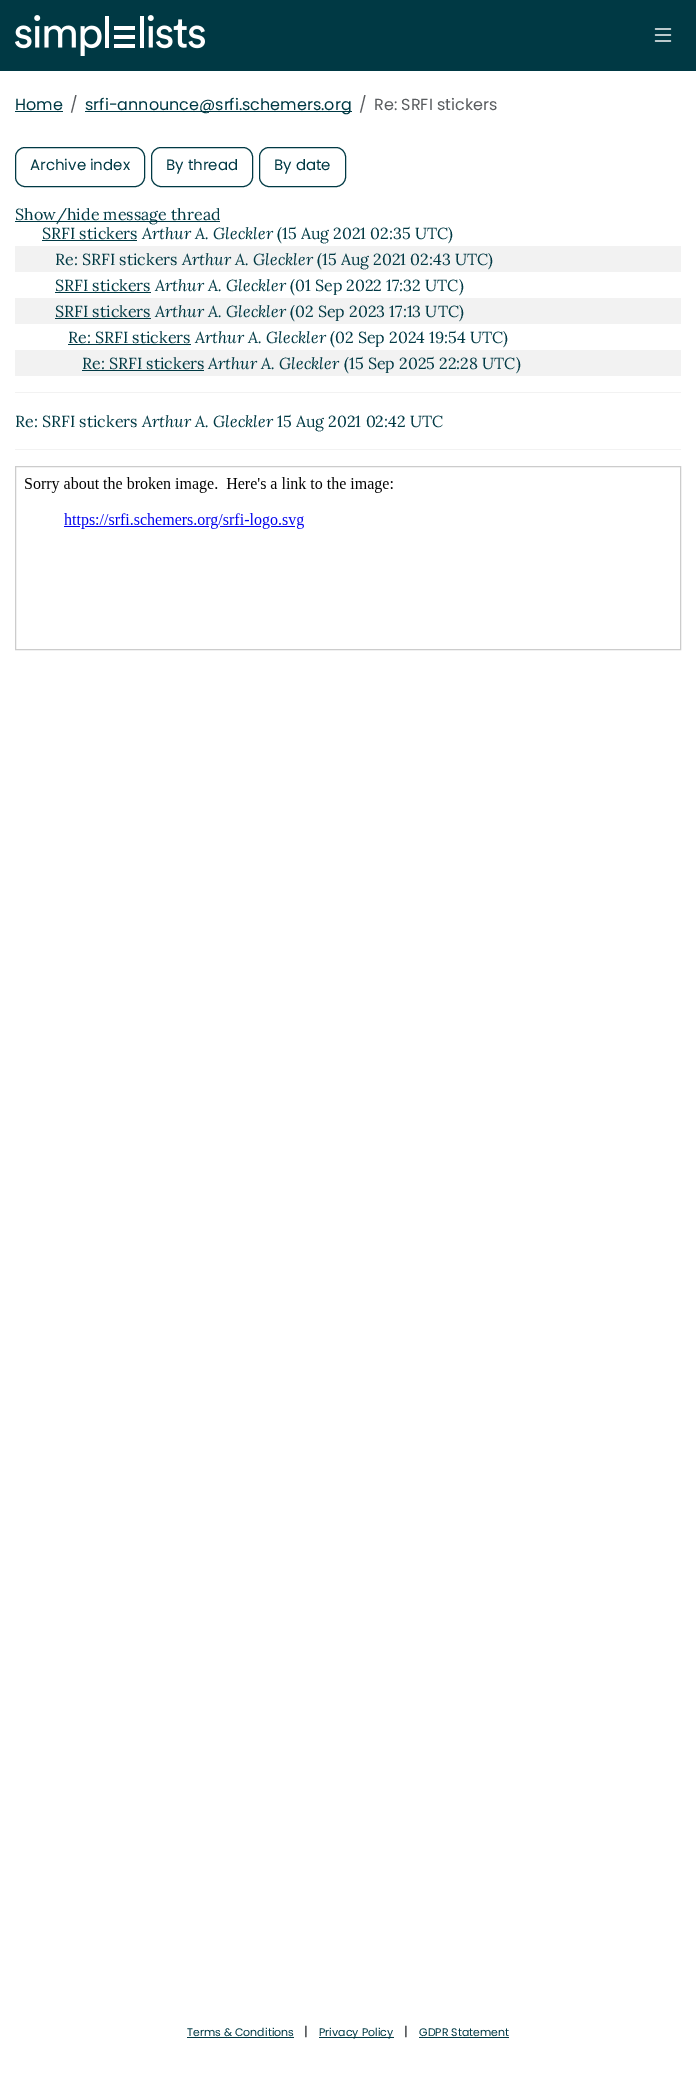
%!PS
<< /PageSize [696 2073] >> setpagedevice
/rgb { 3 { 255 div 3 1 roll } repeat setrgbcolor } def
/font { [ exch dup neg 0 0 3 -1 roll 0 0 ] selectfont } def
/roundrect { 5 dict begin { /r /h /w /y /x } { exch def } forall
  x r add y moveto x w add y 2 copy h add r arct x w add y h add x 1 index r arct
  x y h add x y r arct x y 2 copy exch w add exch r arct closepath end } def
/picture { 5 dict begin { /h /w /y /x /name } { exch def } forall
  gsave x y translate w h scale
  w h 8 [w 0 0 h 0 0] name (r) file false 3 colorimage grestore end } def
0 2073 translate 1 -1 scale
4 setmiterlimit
255 255 255 rgb
0 0 696 2073 rectfill
0 57 68 rgb
0 0 696 71 rectfill
(img/1.rgb) 15 15 190 41 picture
(img/2.rgb) 654 28 18 14 picture
15 111 48 1 rectfill
85 111 267 1 rectfill
15.5 147.5 129 39 9.5 roundrect stroke
151.5 147.5 101 39 9.5 roundrect stroke
259.5 147.5 86 39 9.5 roundrect stroke
[
  [15 221 205 1 0 57 68]
  [42 240 95 1 0 57 68]
  [15 246 666 26 242 242 242]
  [55 292 96 1 0 57 68]
  [15 298 666 26 242 242 242]
  [55 318 96 1 0 57 68]
  [68 344 123 1 0 57 68]
  [15 350 666 26 242 242 242]
  [82 370 122 1 0 57 68]
  [15 392 666 1 242 242 242]
  [15 449 666 1 242 242 242]
] { aload pop rgb rectfill } forall
204 204 204 rgb
15.5 466.5 665 183 rectstroke
(img/3.rgb) 25 477 368 52 picture
[
  [187 2037 107 1 0 57 68]
  [319 2037 75 1 0 57 68]
  [419 2037 90 1 0 57 68]
] { aload pop rgb rectfill } forall
/Poppins-Regular 16 font
15 110 moveto (Home) show
89 92 95 rgb
70 110 moveto (/) show
0 57 68 rgb
85 110 moveto (srfi-announce@srfi.schemers.org) show
89 92 95 rgb
359 110 moveto (/) show
374 110 moveto (Re: SRFI stickers) show
/Poppins-Regular 15 font
0 57 68 rgb
[
  [(Archive index) 30 170]
  [(By thread) 166 170]
  [(By date) 274 170]
] { aload pop moveto show } forall
/Lora-Regular 16 font
15 220 moveto (Show/hide message thread) show
42 239 moveto (SRFI stickers) show
/Lora-Italic 16 font
142 239 moveto (Arthur A. Gleckler) show
/Lora-Regular 16 font
277 239 moveto (\(15 Aug 2021 02:35 UTC\)) show
55 265 moveto (Re: SRFI stickers) show
/Lora-Italic 16 font
182 265 moveto (Arthur A. Gleckler) show
/Lora-Regular 16 font
317 265 moveto (\(15 Aug 2021 02:43 UTC\)) show
55 291 moveto (SRFI stickers) show
/Lora-Italic 16 font
155 291 moveto (Arthur A. Gleckler) show
/Lora-Regular 16 font
290 291 moveto (\(01 Sep 2022 17:32 UTC\)) show
55 317 moveto (SRFI stickers) show
/Lora-Italic 16 font
155 317 moveto (Arthur A. Gleckler) show
/Lora-Regular 16 font
290 317 moveto (\(02 Sep 2023 17:13 UTC\)) show
68 343 moveto (Re: SRFI stickers) show
/Lora-Italic 16 font
195 343 moveto (Arthur A. Gleckler) show
/Lora-Regular 16 font
330 343 moveto (\(02 Sep 2024 19:54 UTC\)) show
82 369 moveto (Re: SRFI stickers) show
/Lora-Italic 16 font
208 369 moveto (Arthur A. Gleckler) show
/Lora-Regular 16 font
344 369 moveto (\(15 Sep 2025 22:28 UTC\)) show
15 427 moveto (Re: SRFI stickers) show
/Lora-Italic 16 font
142 427 moveto (Arthur A. Gleckler) show
/Lora-Regular 16 font
277 427 moveto (15 Aug 2021 02:42 UTC) show
/Poppins-Regular 11 font
187 2036 moveto (Terms & Conditions) show
/Poppins-Regular 13 font
33 37 41 rgb
304 2036 moveto (|) show
/Poppins-Regular 11 font
0 57 68 rgb
319 2036 moveto (Privacy Policy) show
/Poppins-Regular 13 font
33 37 41 rgb
404 2036 moveto (|) show
/Poppins-Regular 11 font
0 57 68 rgb
419 2036 moveto (GDPR Statement) show
showpage
